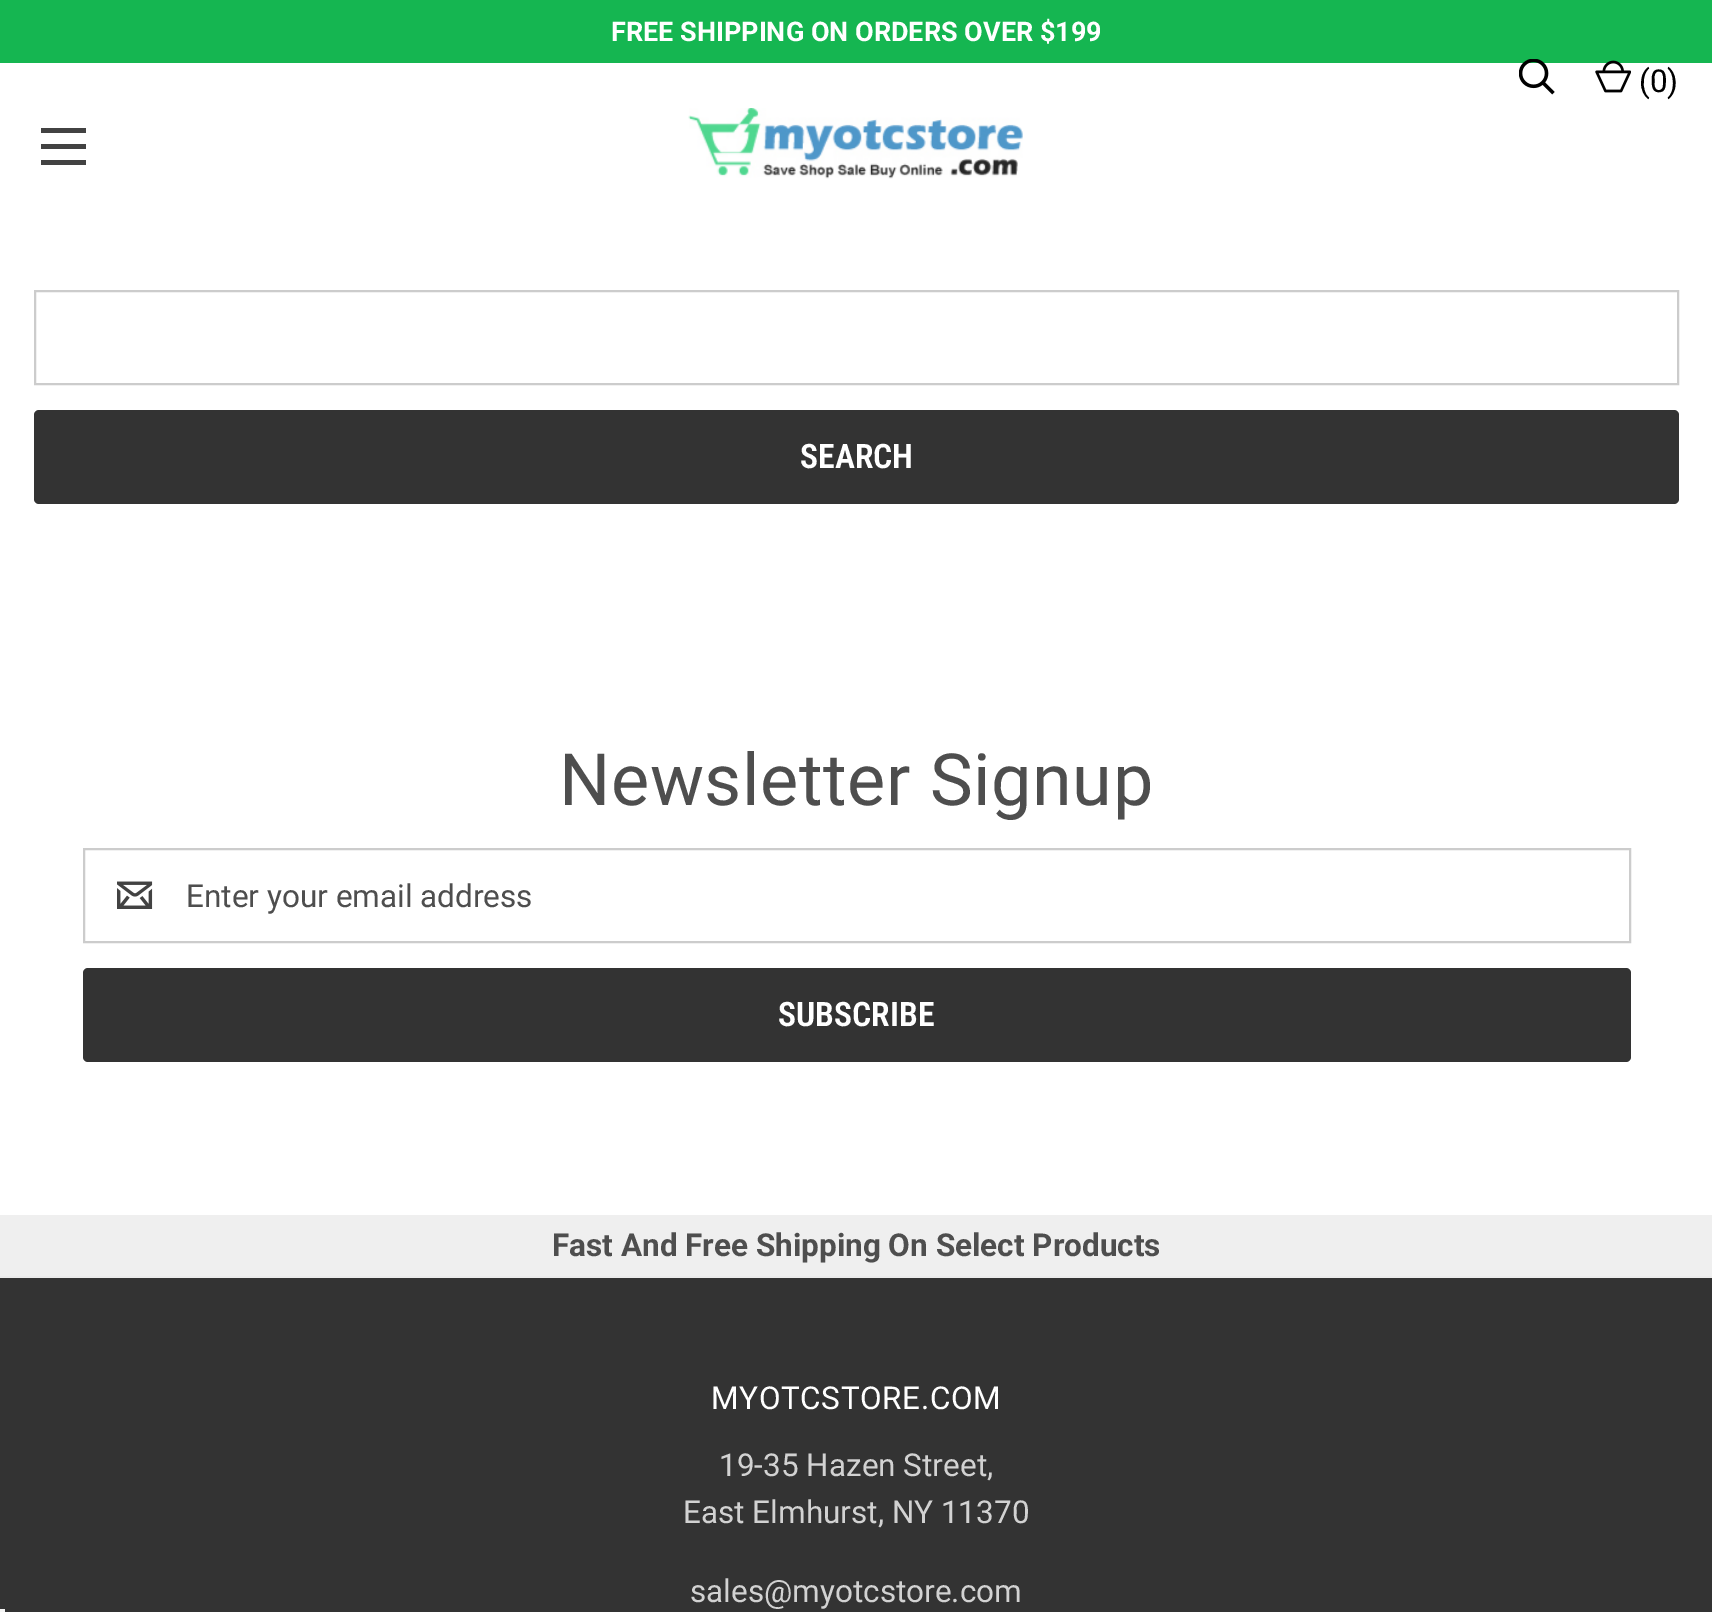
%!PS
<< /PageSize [1712 1612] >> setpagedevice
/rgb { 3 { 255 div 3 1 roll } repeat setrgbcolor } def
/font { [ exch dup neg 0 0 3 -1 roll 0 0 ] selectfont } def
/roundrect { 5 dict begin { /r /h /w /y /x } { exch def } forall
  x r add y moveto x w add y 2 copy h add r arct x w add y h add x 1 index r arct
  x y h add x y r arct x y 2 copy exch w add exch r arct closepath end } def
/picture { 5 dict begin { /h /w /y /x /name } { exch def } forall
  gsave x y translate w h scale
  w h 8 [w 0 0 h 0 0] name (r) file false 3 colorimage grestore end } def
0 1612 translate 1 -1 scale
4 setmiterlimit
255 255 255 rgb
0 0 1712 1612 rectfill
21 182 81 rgb
0 0 1712 63 rectfill
(img/1.rgb) 1519 59 36 36 picture
(img/2.rgb) 1595 60 36 33 picture
(img/3.rgb) 688 108 335 71 picture
[
  [41 144 45 5 66 66 66]
  [41 128 45 5 66 66 66]
  [41 160 45 5 66 66 66]
] { aload pop rgb rectfill } forall
204 204 204 rgb
2 setlinewidth
35 291 1643 93 rectstroke
51 51 51 rgb
34 410 1645 94 5 roundrect fill
204 204 204 rgb
84 849 1546 93 rectstroke
(img/4.rgb) 117 881 36 28 picture
51 51 51 rgb
83 968 1548 94 5 roundrect fill
[
  [0 1215 1712 61 239 239 239]
  [0 1278 1712 334 51 51 51]
  [0 1276 1712 2 235 235 235]
  [0 1609 5 3 245 245 245]
] { aload pop rgb rectfill } forall
/Roboto-Bold 27 font
255 255 255 rgb
611 41 moveto (FREE SHIPPING ON ORDERS OVER $199) show
/Roboto-Regular 31.5 font
0 0 0 rgb
1639 92 moveto (\(0\)) show
/RobotoCondensed-SemiBold 33.75 font
255 255 255 rgb
800 468 moveto (SEARCH) show
/Roboto-Regular 72 font
78 78 78 rgb
559 805 moveto 0.6 0 (Newsletter Signup) ashow
/Roboto-Regular 31.5 font
186 907 moveto (Enter your email address) show
/RobotoCondensed-SemiBold 33.75 font
255 255 255 rgb
778 1026 moveto (SUBSCRIBE) show
/Roboto-Bold 31.5 font
78 78 78 rgb
552 1256 moveto (Fast And Free Shipping On Select Products) show
/Roboto-Regular 31.5 font
255 255 255 rgb
711 1409 moveto 0.6 0 (MYOTCSTORE.COM) ashow
210 210 210 rgb
[
  [(19-35 Hazen Street,) 719 1476]
  [(East Elmhurst, NY 11370) 683 1523]
  [(sales@myotcstore.com) 690 1602]
] { aload pop moveto show } forall
showpage
